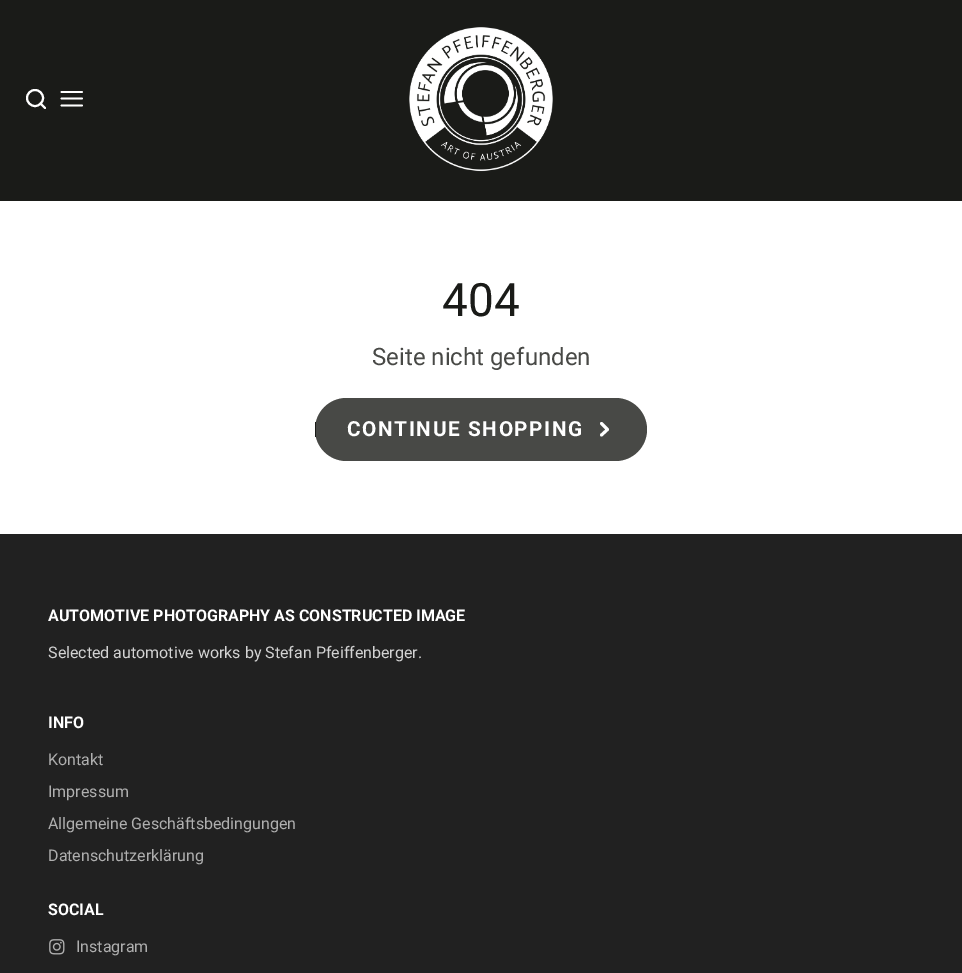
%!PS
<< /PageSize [962 973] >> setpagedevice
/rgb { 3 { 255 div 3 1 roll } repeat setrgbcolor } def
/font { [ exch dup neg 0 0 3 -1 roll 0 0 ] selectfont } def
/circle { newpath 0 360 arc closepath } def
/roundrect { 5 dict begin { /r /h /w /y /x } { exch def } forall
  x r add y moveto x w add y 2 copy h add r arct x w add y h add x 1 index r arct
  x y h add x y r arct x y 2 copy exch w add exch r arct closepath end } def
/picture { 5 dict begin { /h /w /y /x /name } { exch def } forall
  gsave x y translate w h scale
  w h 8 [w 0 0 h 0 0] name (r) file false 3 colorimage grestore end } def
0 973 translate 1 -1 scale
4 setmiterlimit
255 255 255 rgb
0 0 962 973 rectfill
26 27 24 rgb
0 0 962 201 rectfill
255 255 255 rgb
2 setlinewidth
35 98 8 circle stroke
1 setlinecap
1 setlinejoin
45 108 moveto 40.5 103.5 lineto stroke
1.7 setlinewidth
61.5 98.5 moveto 82 98.5 lineto 61.5 92 moveto 82 92 lineto 61.5 105.5 moveto 82 105.5 lineto stroke
(img/1.rgb) 409 27 144 145 picture
72 73 70 rgb
315 398 332 63 31.5 roundrect fill
gsave
315 398 332 63 31.5 roundrect clip newpath
26 27 24 rgb
315 422 1 15 rectfill
grestore
255 255 255 rgb
2.9 setlinewidth
601.5 435 moveto 607.5 429.5 lineto 601.5 423.5 lineto stroke
33 33 33 rgb
0 534 962 439 rectfill
(img/2.rgb) 49 939 16 16 picture
/Roboto-Regular 46 font
26 27 24 rgb
442 316 moveto (404) show
/Roboto-Regular 24 font
72 73 70 rgb
372 365 moveto (Seite nicht gefunden) show
/Roboto-Bold 20.75 font
255 255 255 rgb
347 436 moveto 1.6 0 (CONTINUE SHOPPING) ashow
/Roboto-Bold 16 font
48 621 moveto (AUTOMOTIVE PHOTOGRAPHY AS CONSTRUCTED IMAGE) show
/Roboto-Regular 16 font
211 211 211 rgb
48 658 moveto (Selected automotive works by Stefan Pfeiffenberger.) show
/Roboto-Bold 16 font
255 255 255 rgb
48 728 moveto (INFO) show
/Roboto-Regular 16 font
175 175 175 rgb
[
  [(Kontakt) 48 765]
  [(Impressum) 48 797]
  [(Allgemeine Geschäftsbedingungen) 48 829]
  [(Datenschutzerklärung) 48 861]
] { aload pop moveto show } forall
/Roboto-Bold 16 font
255 255 255 rgb
48 915 moveto (SOCIAL) show
/Roboto-Regular 16 font
175 175 175 rgb
76 952 moveto (Instagram) show
showpage
